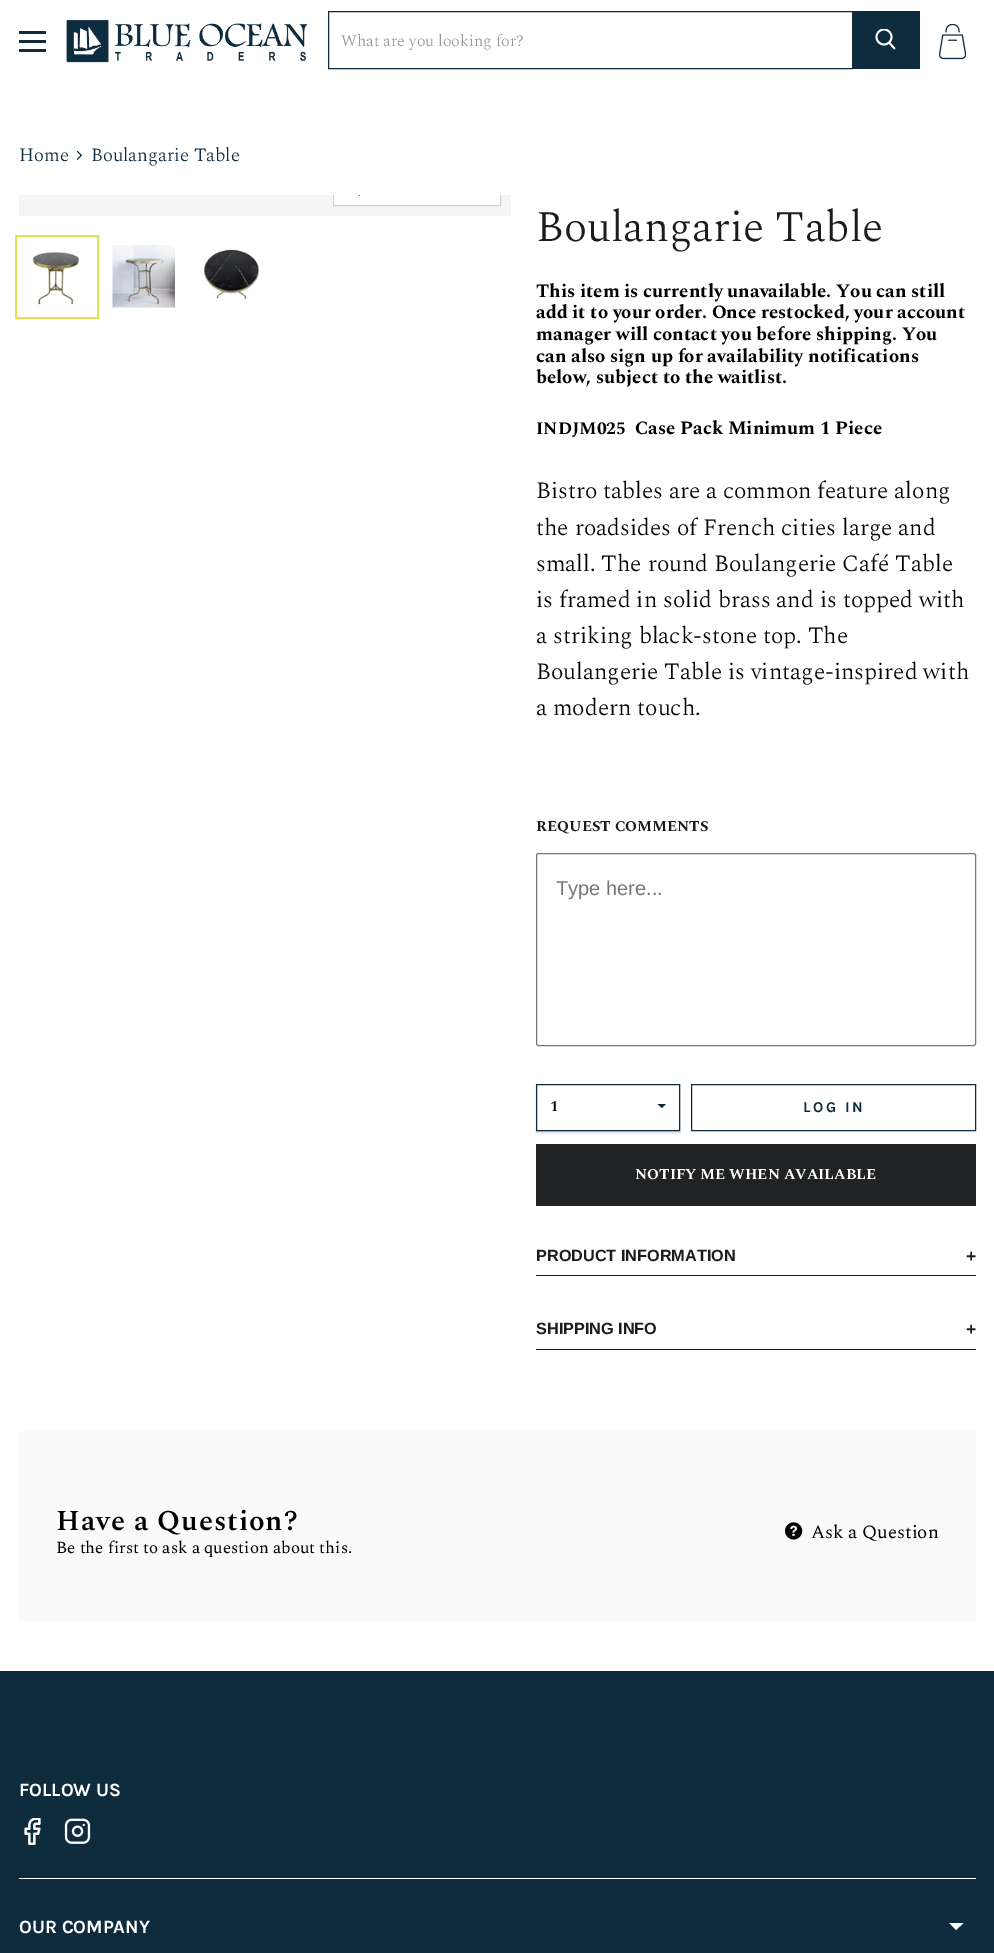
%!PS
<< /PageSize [994 1953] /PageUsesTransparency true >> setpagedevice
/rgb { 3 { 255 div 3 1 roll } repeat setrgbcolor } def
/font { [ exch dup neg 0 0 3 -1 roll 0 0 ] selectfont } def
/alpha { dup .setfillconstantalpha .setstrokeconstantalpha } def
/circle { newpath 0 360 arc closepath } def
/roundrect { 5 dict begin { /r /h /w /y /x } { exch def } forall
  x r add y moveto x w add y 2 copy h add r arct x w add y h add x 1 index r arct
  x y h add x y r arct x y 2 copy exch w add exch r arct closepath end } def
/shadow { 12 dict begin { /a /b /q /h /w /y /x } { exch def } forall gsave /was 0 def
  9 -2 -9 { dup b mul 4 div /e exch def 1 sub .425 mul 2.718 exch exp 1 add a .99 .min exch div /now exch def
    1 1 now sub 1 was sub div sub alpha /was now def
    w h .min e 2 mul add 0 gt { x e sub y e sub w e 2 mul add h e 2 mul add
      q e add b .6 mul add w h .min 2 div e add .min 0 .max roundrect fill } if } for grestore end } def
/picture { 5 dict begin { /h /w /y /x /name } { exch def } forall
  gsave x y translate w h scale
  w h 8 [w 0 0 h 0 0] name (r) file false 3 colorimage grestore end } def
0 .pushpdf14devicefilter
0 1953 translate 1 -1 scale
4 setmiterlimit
255 255 255 rgb
0 0 994 1953 rectfill
[
  [19 31 27 3 15 44 63]
  [19 40 27 3 15 44 63]
  [19 49 27 3 15 44 63]
] { aload pop rgb rectfill } forall
(img/1.rgb) 66 19 242 44 picture
328.5 11.5 524 57 rectstroke
853 11 67 58 rectfill
255 255 255 rgb
1.8 setlinewidth
1 setlinecap
894.5 48.5 moveto 889.5 43 lineto stroke
gsave
875 29 21 22 rectclip
0 setlinecap
884 37 7.5 circle stroke
grestore
(img/2.rgb) 939 24 27 36 picture
(img/3.rgb) 76 151 7 9 picture
245 245 245 rgb
19 195 492 21 rectfill
gsave
19 195 492 21 rectclip
208 208 208 rgb
1 setlinewidth
0 setlinecap
333.5 169.5 167 36 rectstroke
grestore
254 254 254 rgb
334 195 166 10 rectfill
(img/4.rgb) 358 195 2 1 picture
226 224 87 rgb
2 setlinewidth
0 setlinecap
16 236 82 82 rectstroke
(img/5.rgb) 32 251 49 54 picture
(img/6.rgb) 112 245 63 63 picture
(img/7.rgb) 203 248 57 52 picture
118 118 118 rgb
1 setlinewidth
536.5 853.5 439 192 2 roundrect stroke
0 0 0 rgb
536 1085 144 48 0 1 0.15 shadow
255 255 255 rgb
536.5 1084.5 moveto 679.5 1084.5 lineto 679.5 1130.5 lineto 536.5 1130.5 lineto closepath gsave fill grestore
15 44 63 rgb
stroke
657.5 1104 moveto 666 1104 lineto 662 1108 lineto closepath fill
691.5 1084.5 284 46 rectstroke
[
  [536 1144 440 62 32 34 35]
  [536 1275 440 1 28 28 28]
  [536 1349 440 1 28 28 28]
  [19 1431 957 190 250 250 250]
] { aload pop rgb rectfill } forall
(img/8.rgb) 785 1522 18 18 picture
15 44 63 rgb
0 1671 994 282 rectfill
255 255 255 rgb
19 1878 957 1 rectfill
(img/9.rgb) 24 1818 17 27 picture
(img/10.rgb) 64 1818 27 26 picture
gsave
949 1923 15 7 rectclip
949 1922.5 moveto 964 1922.5 lineto 956 1930 lineto closepath fill
grestore
/Spectral-Light 16.25 font
153 153 153 rgb
341 46 moveto (What are you looking for?) show
/Spectral-Light 18.75 font
15 44 63 rgb
19 161 moveto (Home) show
91 161 moveto (Boulangarie Table) show
/Spectral-Light 43.75 font
28 28 28 rgb
536 241 moveto (Boulangarie Table) show
/Spectral-Bold 18.75 font
0 0 0 rgb
[
  [(This item is currently unavailable. You can still) 536 297]
  [(add it to your order. Once restocked, your account) 536 318]
  [(manager will contact you before shipping. You) 536 340]
  [(can also sign up for availability notifications) 536 362]
  [(below, subject to the waitlist.) 536 383]
] { aload pop moveto show } forall
/Spectral-Bold 17.5 font
536 434 moveto (INDJM025) show
/Spectral-Bold 18.75 font
635 434 moveto (Case Pack Minimum 1 Piece) show
/Spectral-Light 23.4 font
[
  [(Bistro tables are a common feature along) 536 498]
  [(the roadsides of French cities large and) 536 535]
  [(small. The round Boulangerie Café Table) 536 571]
  [(is framed in solid brass and is topped with) 536 607]
  [(a striking black-stone top. The) 536 643]
  [(Boulangerie Table is vintage-inspired with) 536 679]
  [(a modern touch.) 536 715]
] { aload pop moveto show } forall
/Spectral-Bold 15 font
28 28 28 rgb
536 831 moveto (REQUEST COMMENTS) show
/LiberationSans-Regular 20 font
117 117 117 rgb
556 895 moveto (Type here...) show
/Spectral-Bold 15 font
0 0 0 rgb
550 1111 moveto (1) show
/Karla-Bold 15 font
15 44 63 rgb
803 1112 moveto 2.5 0 (LOG IN) ashow
/Spectral-Bold 15 font
255 255 255 rgb
635 1179 moveto (NOTIFY ME WHEN AVAILABLE) show
/LiberationSans-Bold 16.25 font
28 28 28 rgb
536 1261 moveto (PRODUCT INFORMATION) show
/LiberationSans-Bold 17.5 font
966 1262 moveto (+) show
/LiberationSans-Bold 16.25 font
536 1334 moveto (SHIPPING INFO) show
/LiberationSans-Bold 17.5 font
966 1335 moveto (+) show
/Spectral-SemiBold 28.75 font
0 0 0 rgb
56 1530 moveto 0.9 0 (Have a Question?) ashow
/Spectral-Regular 16.9 font
56 1553 moveto (Be the first to ask a question about this.) show
/Spectral-Regular 18.75 font
811 1538 moveto (Ask a Question) show
/Karla-Bold 18.75 font
255 255 255 rgb
19 1796 moveto (FOLLOW US) show
19 1933 moveto (OUR COMPANY) show
.poppdf14devicefilter showpage
